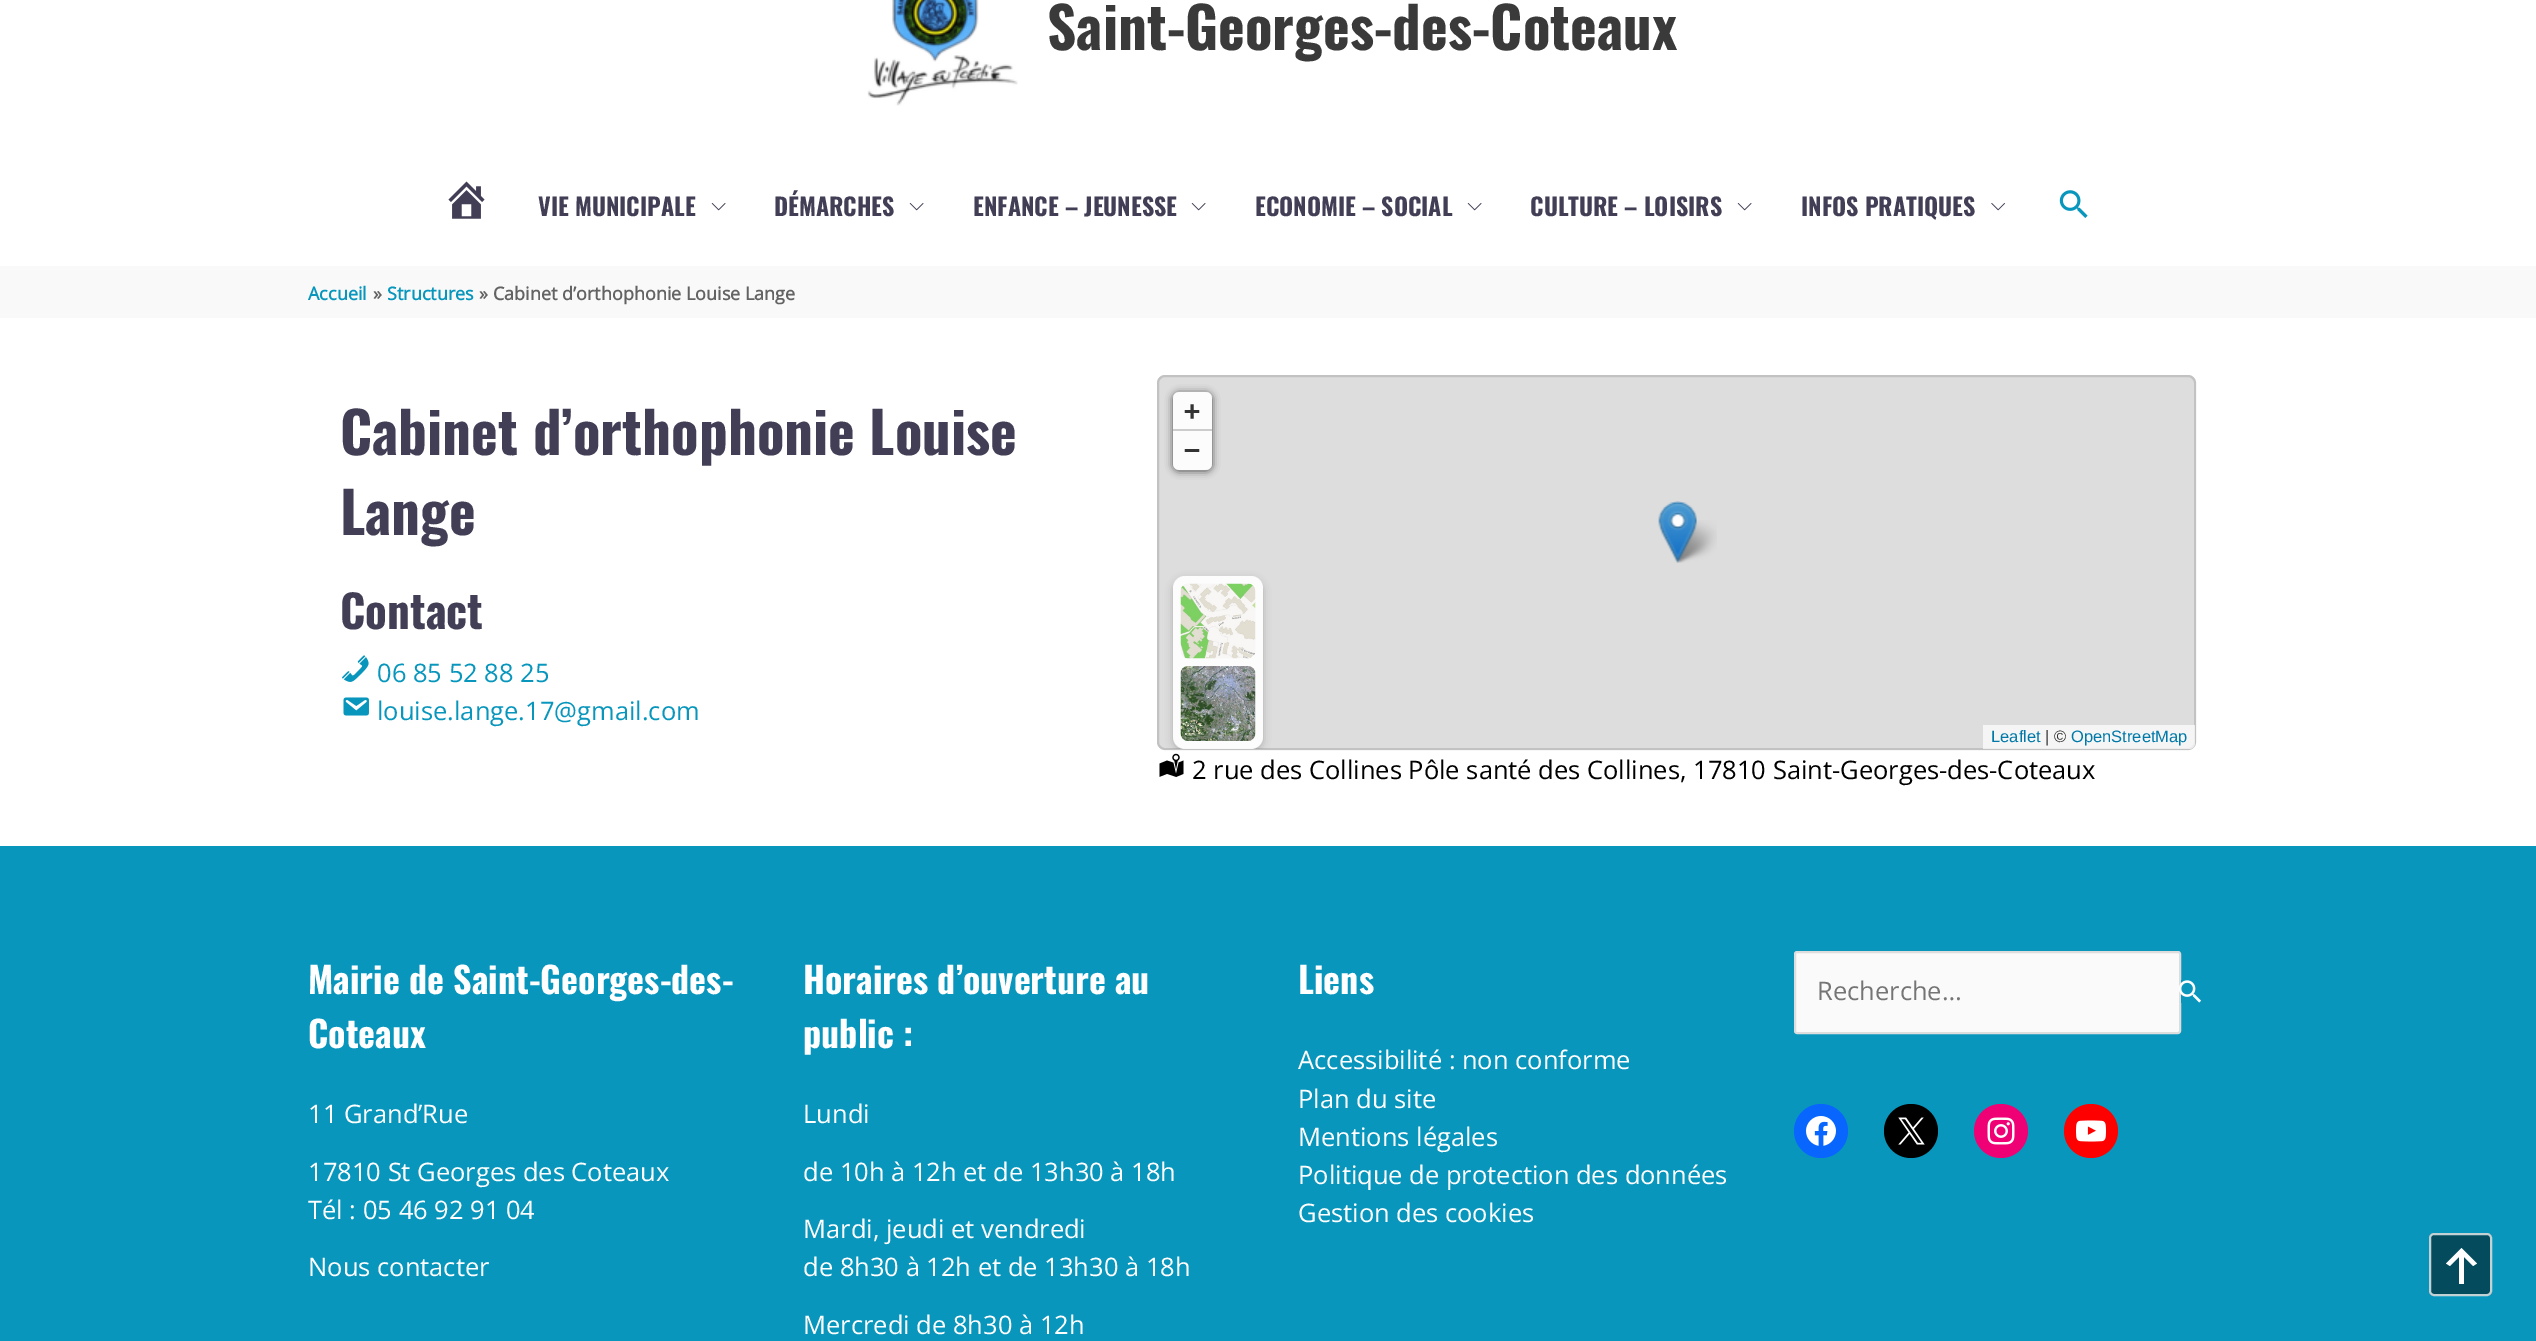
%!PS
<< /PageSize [2536 1341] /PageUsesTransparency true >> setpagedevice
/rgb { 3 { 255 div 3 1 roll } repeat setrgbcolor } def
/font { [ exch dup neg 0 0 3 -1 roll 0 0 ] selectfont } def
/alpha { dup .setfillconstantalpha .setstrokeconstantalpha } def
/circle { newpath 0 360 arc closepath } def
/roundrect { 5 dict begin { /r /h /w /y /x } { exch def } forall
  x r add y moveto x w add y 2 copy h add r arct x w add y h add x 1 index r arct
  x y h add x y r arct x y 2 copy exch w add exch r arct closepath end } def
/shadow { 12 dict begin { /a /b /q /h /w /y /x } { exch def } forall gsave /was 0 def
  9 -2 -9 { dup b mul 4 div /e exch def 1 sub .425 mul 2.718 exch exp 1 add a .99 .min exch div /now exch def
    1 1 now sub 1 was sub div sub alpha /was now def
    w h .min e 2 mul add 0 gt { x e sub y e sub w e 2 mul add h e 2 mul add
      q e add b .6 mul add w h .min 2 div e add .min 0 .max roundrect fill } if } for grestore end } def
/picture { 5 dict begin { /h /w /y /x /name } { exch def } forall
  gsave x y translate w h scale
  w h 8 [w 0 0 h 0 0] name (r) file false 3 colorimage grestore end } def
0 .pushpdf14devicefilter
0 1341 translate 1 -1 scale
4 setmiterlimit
255 255 255 rgb
0 0 2536 1341 rectfill
(img/1.rgb) 867 0 151 106 picture
(img/2.rgb) 448 181 37 38 picture
(img/3.rgb) 711 203 15 8 picture
(img/3.rgb) 909 203 15 8 picture
(img/3.rgb) 1191 203 15 8 picture
(img/3.rgb) 1467 203 15 8 picture
(img/3.rgb) 1737 203 15 8 picture
(img/4.rgb) 1991 203 14 8 picture
(img/5.rgb) 2059 190 29 28 picture
249 249 249 rgb
0 266 2536 52 rectfill
(img/6.rgb) 342 655 27 27 picture
(img/7.rgb) 343 697 26 19 picture
221 221 221 rgb
1157 375 1039 375 8 roundrect fill
0.12 alpha
0 0 0 rgb
2 setlinewidth
1158 376 1037 373 7 roundrect stroke
gsave
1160 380 moveto 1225 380 lineto 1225 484 lineto 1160 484 lineto closepath 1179 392 moveto 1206 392 lineto 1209.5 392 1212 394.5 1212 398 curveto 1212 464 lineto 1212 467.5 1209.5 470 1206 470 curveto 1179 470 lineto 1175.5 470 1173 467.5 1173 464 curveto 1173 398 lineto 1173 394.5 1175.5 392 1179 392 curveto closepath eoclip newpath
1 alpha
1173 393 39 78 6 4 0.65 shadow
grestore
0.9 alpha
255 255 255 rgb
1173 392 39 78 6 roundrect fill
1 alpha
204 204 204 rgb
1173 429 39 2 rectfill
(img/12.rgb) 1159 753 25 24 picture
gsave
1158 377 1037 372 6 roundrect clip newpath
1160 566 moveto 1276 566 lineto 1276 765 lineto 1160 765 lineto closepath 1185 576 moveto 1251 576 lineto 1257.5 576 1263 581.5 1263 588 curveto 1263 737 lineto 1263 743.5 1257.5 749 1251 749 curveto 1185 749 lineto 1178.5 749 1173 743.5 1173 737 curveto 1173 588 lineto 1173 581.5 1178.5 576 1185 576 curveto closepath eoclip newpath
0 0 0 rgb
1173 579 90 173 12 4 0.2 shadow
grestore
0.9 alpha
255 255 255 rgb
1173 576 90 173 12 roundrect fill
1 alpha
(img/8.rgb) 1180 583 76 76 picture
(img/9.rgb) 1180 666 76 75 picture
0.7 alpha
1983 725 moveto 2195 725 lineto 2195 743 lineto 2195 746.5 2192.5 749 2189 749 curveto 1983 749 lineto closepath fill
1 alpha
(img/11.rgb) 1672 520 45 43 picture
(img/10.rgb) 1658 501 39 62 picture
8 150 188 rgb
0 846 2536 495 rectfill
4 75 94 rgb
2429 1233 63 63 5 roundrect fill
0.8 alpha
242 242 242 rgb
2430 1234 61 61 4 roundrect stroke
1 alpha
255 255 255 rgb
2464 1284 moveto 2459 1284 lineto 2459 1257 lineto 2450 1266 lineto 2446 1263.5 lineto 2461.5 1248 lineto 2477 1263.5 lineto 2473 1266 lineto 2464 1257 lineto closepath fill
250 250 250 rgb
1795 952 385 81 2 roundrect gsave fill grestore
221 221 221 rgb
stroke
(img/13.rgb) 2179 980 22 23 picture
8 102 255 rgb
1821 1131 27 circle fill
(img/14.rgb) 1806 1116 30 30 picture
0 0 0 rgb
1911 1131 27 circle fill
(img/15.rgb) 1898 1117 27 28 picture
240 0 117 rgb
2001 1131 27 circle fill
(img/16.rgb) 1987 1117 28 28 picture
255 0 0 rgb
2091 1131 27 circle fill
(img/17.rgb) 2076 1120 30 22 picture
/Oswald-Bold 57 font
58 58 58 rgb
1047 50 moveto (Saint-Georges-des-Coteaux) show
/Oswald-Bold 24 font
66 62 86 rgb
[
  [(VIE MUNICIPALE) 538 216]
  [(DÉMARCHES) 774 216]
  [(ENFANCE – JEUNESSE) 973 216]
  [(ECONOMIE – SOCIAL) 1255 216]
  [(CULTURE – LOISIRS) 1530 216]
  [(INFOS PRATIQUES) 1801 216]
] { aload pop moveto show } forall
/OpenSans-Bold 18 font
8 150 188 rgb
308 300 moveto (Accueil) show
99 99 99 rgb
373 300 moveto (») show
8 150 188 rgb
387 300 moveto (Structures) show
99 99 99 rgb
479 300 moveto (») show
493 300 moveto (Cabinet d’orthophonie Louise Lange) show
/Oswald-Bold 57 font
66 62 86 rgb
340 455 moveto (Cabinet d’orthophonie Louise) show
340 535 moveto (Lange) show
/Oswald-Bold 45 font
340 629 moveto (Contact) show
/OpenSans-Regular 25.5 font
8 150 188 rgb
377 682 moveto (06 85 52 88 25) show
377 720 moveto (louise.lange.17@gmail.com) show
/DejaVuSansMono-Bold 27 font
51 51 51 rgb
1184 420 moveto (+) show
1184 459 moveto (−) show
/LiberationSans-Regular 16.5 font
0 120 168 rgb
1991 742 moveto (Leaflet) show
51 51 51 rgb
2045 742 moveto (| ©) show
0 120 168 rgb
2071 742 moveto (OpenStreetMap) show
/OpenSans-Regular 25.5 font
0 0 0 rgb
1192 779 moveto (2 rue des Collines Pôle santé des Collines, 17810 Saint-Georges-des-Coteaux) show
/Oswald-Bold 36 font
255 255 255 rgb
308 994 moveto (Mairie de Saint-Georges-des-) show
308 1048 moveto (Coteaux) show
/OpenSans-Regular 25.5 font
[
  [(11 Grand’Rue) 308 1123]
  [(17810 St Georges des Coteaux) 308 1181]
  [(Tél : 05 46 92 91 04) 308 1219]
  [(Nous contacter) 308 1276]
] { aload pop moveto show } forall
/Oswald-Bold 36 font
803 994 moveto (Horaires d’ouverture au) show
803 1048 moveto (public :) show
/OpenSans-Regular 25.5 font
[
  [(Lundi) 803 1123]
  [(de 10h à 12h et de 13h30 à 18h) 803 1181]
  [(Mardi, jeudi et vendredi) 803 1238]
  [(de 8h30 à 12h et de 13h30 à 18h) 803 1276]
  [(Mercredi de 8h30 à 12h) 803 1334]
] { aload pop moveto show } forall
/Oswald-Bold 36 font
1298 994 moveto (Liens) show
/OpenSans-Regular 25.5 font
[
  [(Accessibilité : non conforme) 1298 1069]
  [(Plan du site) 1298 1108]
  [(Mentions légales) 1298 1146]
  [(Politique de protection des données) 1298 1184]
  [(Gestion des cookies) 1298 1222]
] { aload pop moveto show } forall
117 117 117 rgb
1817 1000 moveto (Recherche…) show
.poppdf14devicefilter showpage
